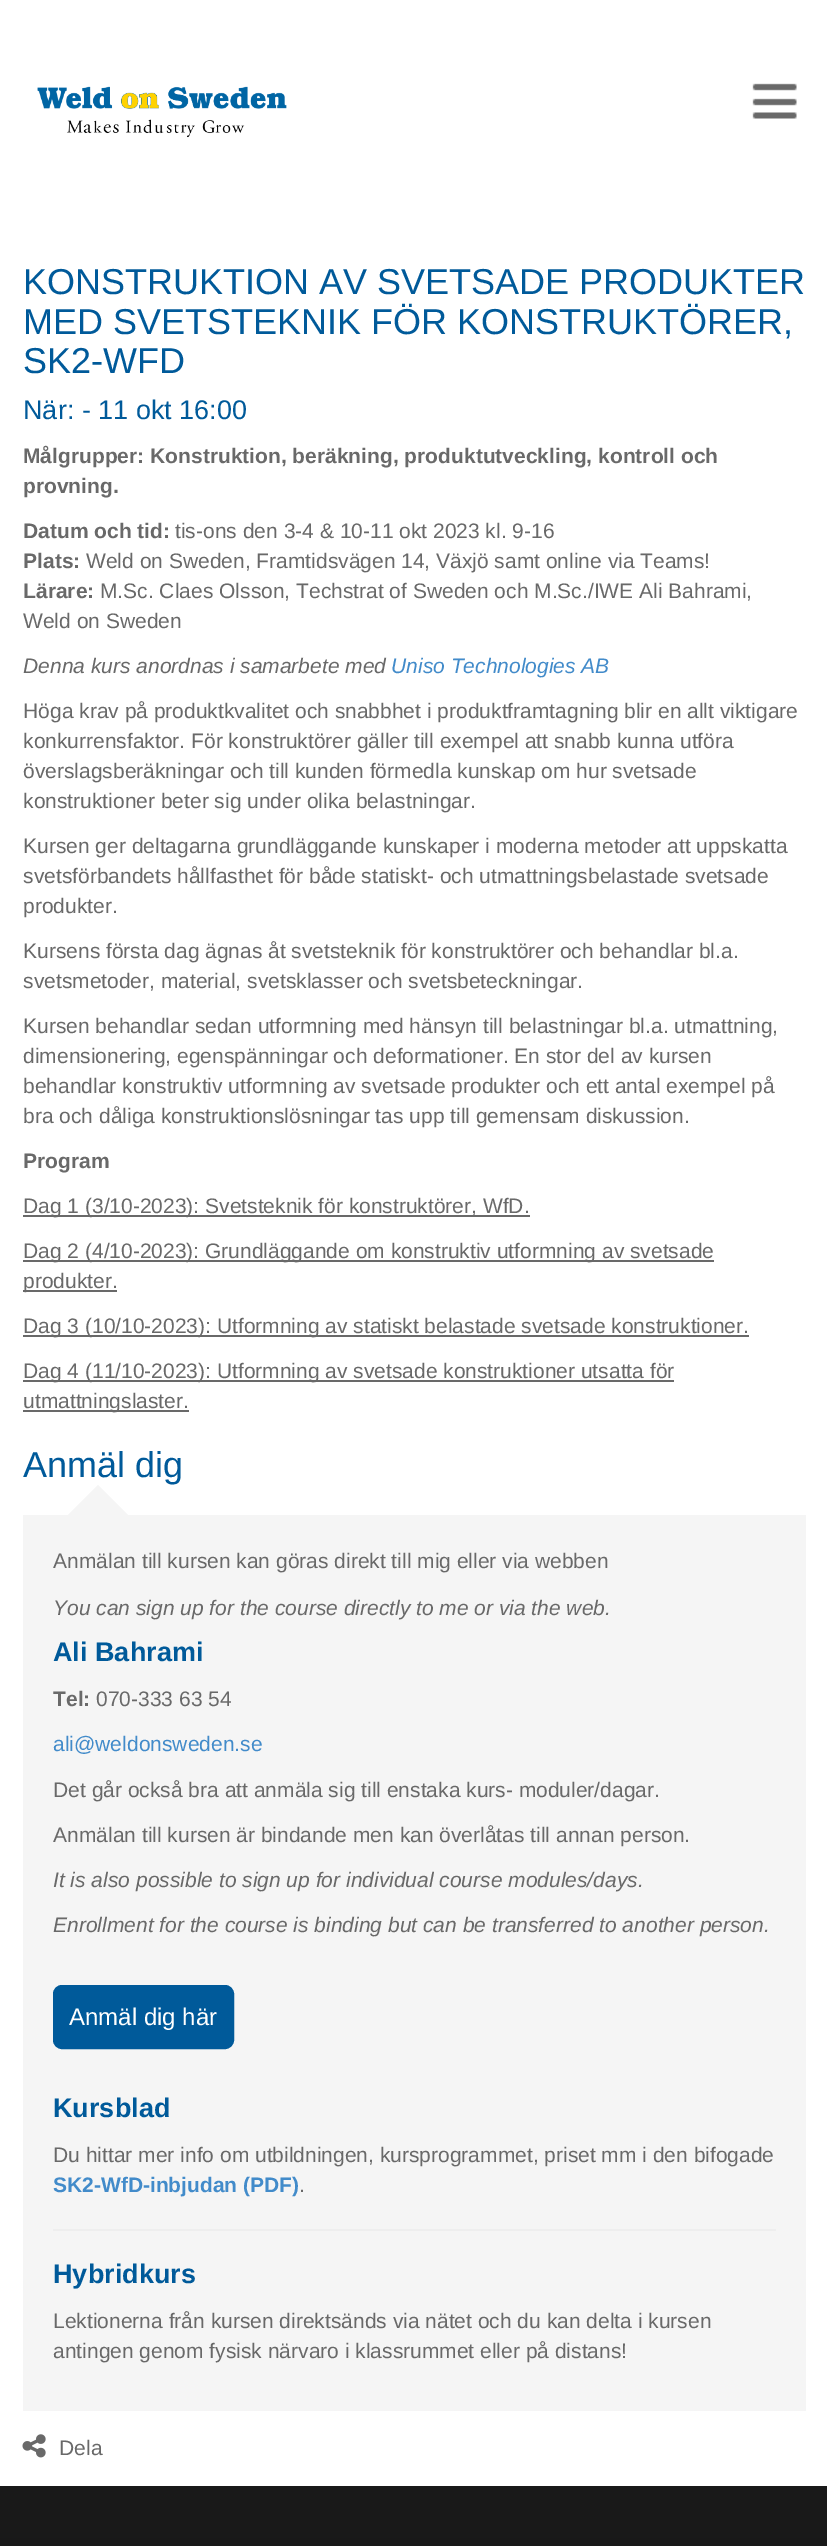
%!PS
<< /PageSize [827 2546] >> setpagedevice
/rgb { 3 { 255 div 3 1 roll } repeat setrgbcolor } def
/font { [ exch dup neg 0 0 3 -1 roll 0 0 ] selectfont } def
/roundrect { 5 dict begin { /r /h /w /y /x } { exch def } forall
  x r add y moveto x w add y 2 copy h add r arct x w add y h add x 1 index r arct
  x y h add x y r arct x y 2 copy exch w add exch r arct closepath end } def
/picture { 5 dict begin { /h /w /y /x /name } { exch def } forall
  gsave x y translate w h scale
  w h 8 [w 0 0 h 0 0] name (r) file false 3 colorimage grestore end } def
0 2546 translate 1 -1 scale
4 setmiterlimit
255 255 255 rgb
0 0 827 2546 rectfill
25 25 25 rgb
0 2486 827 52 rectfill
(img/1.rgb) 37 86 250 52 picture
(img/2.rgb) 752 83 45 36 picture
[
  [23 1215 507 2 105 105 105]
  [23 1260 691 2 105 105 105]
  [23 1290 94 2 105 105 105]
  [23 1335 726 2 105 105 105]
  [23 1380 651 2 105 105 105]
  [23 1410 166 2 105 105 105]
  [23 1515 783 896 245 245 245]
] { aload pop rgb rectfill } forall
128 1515 moveto 68 1515 lineto 98 1485 lineto closepath fill
0 90 154 rgb
54 1986 179 62 8 roundrect gsave fill grestore
2 setlinewidth
stroke
238 238 238 rgb
53 2229 723 2 rectfill
(img/3.rgb) 22 2434 24 24 picture
24 24 24 rgb
0 2538 827 8 rectfill
/LiberationSans-Regular 36 font
0 90 154 rgb
[
  [(KONSTRUKTION AV SVETSADE PRODUKTER) 23 294]
  [(MED SVETSTEKNIK FÖR KONSTRUKTÖRER,) 23 334]
  [(SK2-WFD) 23 373]
] { aload pop moveto show } forall
/LiberationSans-Regular 27 font
23 419 moveto (När: - 11 okt 16:00) show
/LiberationSans-Bold 21 font
105 105 105 rgb
[
  [(Målgrupper: Konstruktion, beräkning, produktutveckling, kontroll och) 23 463]
  [(provning.) 23 493]
  [(Datum och tid:) 23 538]
] { aload pop moveto show } forall
/LiberationSans-Regular 21 font
175 538 moveto (tis-ons den 3-4 & 10-11 okt 2023 kl. 9-16) show
/LiberationSans-Bold 21 font
23 568 moveto (Plats:) show
/LiberationSans-Regular 21 font
86 568 moveto (Weld on Sweden, Framtidsvägen 14, Växjö samt online via Teams!) show
/LiberationSans-Bold 21 font
23 598 moveto (Lärare:) show
/LiberationSans-Regular 21 font
100 598 moveto (M.Sc. Claes Olsson, Techstrat of Sweden och M.Sc./IWE Ali Bahrami,) show
23 628 moveto (Weld on Sweden) show
/LiberationSans-Italic 21 font
23 673 moveto (Denna kurs anordnas i samarbete med) show
66 139 202 rgb
391 673 moveto (Uniso Technologies AB) show
/LiberationSans-Regular 21 font
105 105 105 rgb
[
  [(Höga krav på produktkvalitet och snabbhet i produktframtagning blir en allt viktigare) 23 718]
  [(konkurrensfaktor. För konstruktörer gäller till exempel att snabb kunna utföra) 23 748]
  [(överslagsberäkningar och till kunden förmedla kunskap om hur svetsade) 23 778]
  [(konstruktioner beter sig under olika belastningar.) 23 808]
  [(Kursen ger deltagarna grundläggande kunskaper i moderna metoder att uppskatta) 23 853]
  [(svetsförbandets hållfasthet för både statiskt- och utmattningsbelastade svetsade) 23 883]
  [(produkter.) 23 913]
  [(Kursens första dag ägnas åt svetsteknik för konstruktörer och behandlar bl.a.) 23 958]
  [(svetsmetoder, material, svetsklasser och svetsbeteckningar.) 23 988]
  [(Kursen behandlar sedan utformning med hänsyn till belastningar bl.a. utmattning,) 23 1033]
  [(dimensionering, egenspänningar och deformationer. En stor del av kursen) 23 1063]
  [(behandlar konstruktiv utformning av svetsade produkter och ett antal exempel på) 23 1093]
  [(bra och dåliga konstruktionslösningar tas upp till gemensam diskussion.) 23 1123]
] { aload pop moveto show } forall
/LiberationSans-Bold 21 font
23 1168 moveto (Program) show
/LiberationSans-Regular 21 font
[
  [(Dag 1 \(3/10-2023\): Svetsteknik för konstruktörer, WfD.) 23 1213]
  [(Dag 2 \(4/10-2023\): Grundläggande om konstruktiv utformning av svetsade) 23 1258]
  [(produkter.) 23 1288]
  [(Dag 3 \(10/10-2023\): Utformning av statiskt belastade svetsade konstruktioner.) 23 1333]
  [(Dag 4 \(11/10-2023\): Utformning av svetsade konstruktioner utsatta för) 23 1378]
  [(utmattningslaster.) 23 1408]
] { aload pop moveto show } forall
/LiberationSans-Regular 36 font
0 90 154 rgb
23 1477 moveto (Anmäl dig) show
/LiberationSans-Regular 21 font
105 105 105 rgb
53 1568 moveto (Anmälan till kursen kan göras direkt till mig eller via webben) show
/LiberationSans-Italic 21 font
53 1615 moveto (You can sign up for the course directly to me or via the web.) show
/LiberationSans-Bold 27 font
0 90 154 rgb
53 1661 moveto (Ali Bahrami) show
/LiberationSans-Bold 21 font
105 105 105 rgb
53 1706 moveto (Tel:) show
/LiberationSans-Regular 21 font
96 1706 moveto (070-333 63 54) show
66 139 202 rgb
53 1751 moveto (ali@weldonsweden.se) show
105 105 105 rgb
53 1797 moveto (Det går också bra att anmäla sig till enstaka kurs- moduler/dagar.) show
53 1842 moveto (Anmälan till kursen är bindande men kan överlåtas till annan person.) show
/LiberationSans-Italic 21 font
53 1887 moveto (It is also possible to sign up for individual course modules/days.) show
53 1932 moveto (Enrollment for the course is binding but can be transferred to another person.) show
/LiberationSans-Regular 24 font
255 255 255 rgb
69 2025 moveto (Anmäl dig här) show
/LiberationSans-Bold 27 font
0 90 154 rgb
53 2117 moveto (Kursblad) show
/LiberationSans-Regular 21 font
105 105 105 rgb
53 2162 moveto (Du hittar mer info om utbildningen, kursprogrammet, priset mm i den bifogade) show
/LiberationSans-Bold 21 font
66 139 202 rgb
53 2192 moveto (SK2-WfD-inbjudan \(PDF\)) show
/LiberationSans-Regular 21 font
105 105 105 rgb
299 2192 moveto (.) show
/LiberationSans-Bold 27 font
0 90 154 rgb
53 2283 moveto (Hybridkurs) show
/LiberationSans-Regular 21 font
105 105 105 rgb
[
  [(Lektionerna från kursen direktsänds via nätet och du kan delta i kursen) 53 2328]
  [(antingen genom fysisk närvaro i klassrummet eller på distans!) 53 2358]
  [(Dela) 59 2455]
] { aload pop moveto show } forall
showpage
